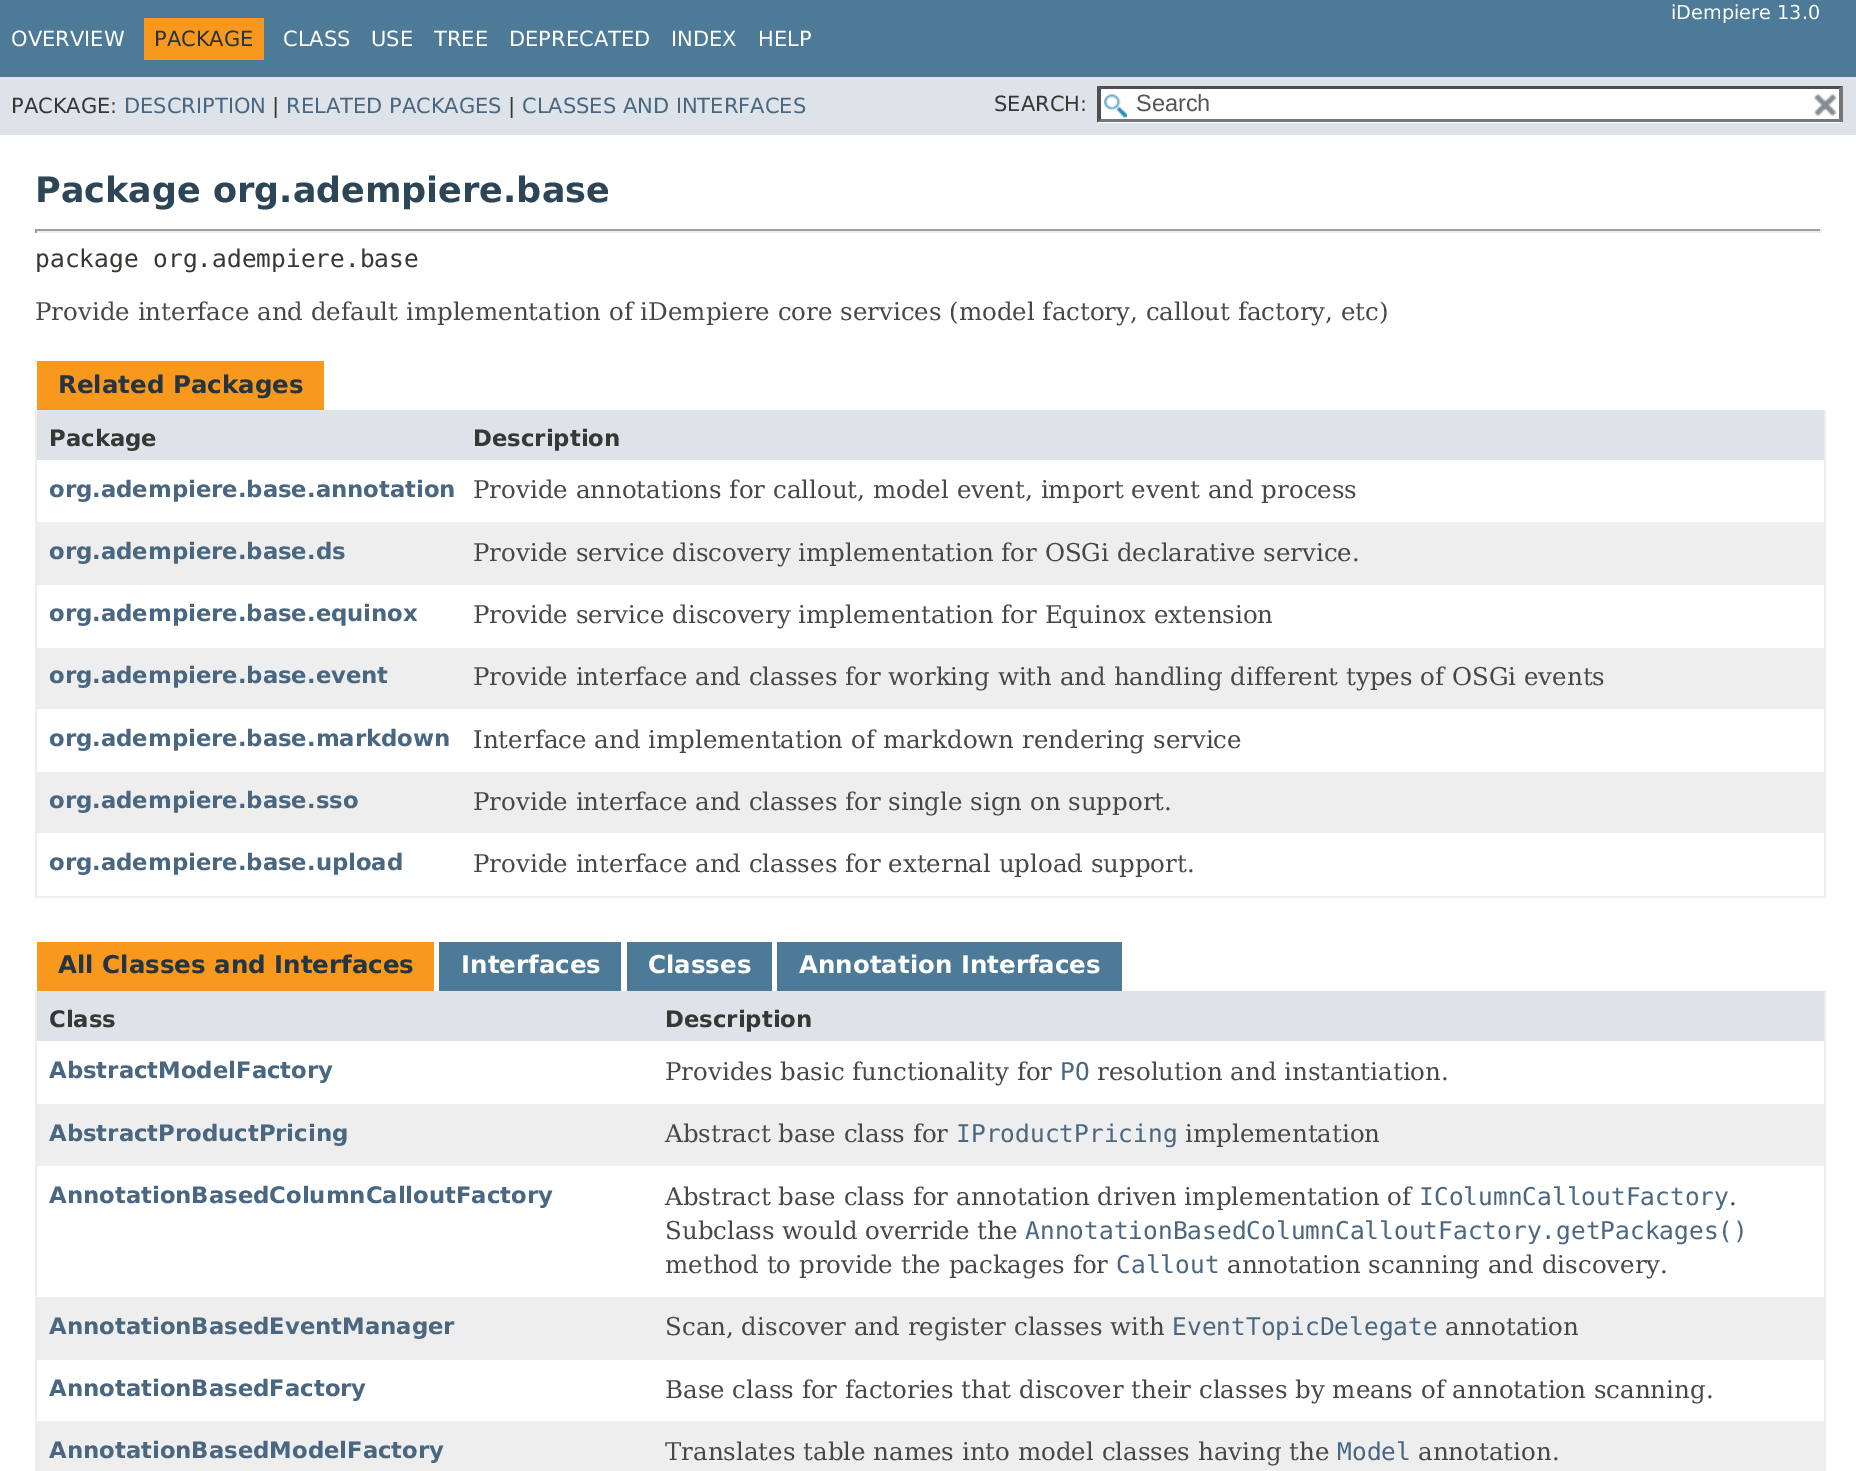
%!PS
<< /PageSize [1856 1471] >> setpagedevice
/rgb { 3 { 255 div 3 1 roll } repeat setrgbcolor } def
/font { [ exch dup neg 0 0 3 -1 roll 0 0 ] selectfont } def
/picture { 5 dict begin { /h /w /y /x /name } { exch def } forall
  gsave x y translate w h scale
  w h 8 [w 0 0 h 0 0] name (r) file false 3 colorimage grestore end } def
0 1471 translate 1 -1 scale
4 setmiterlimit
255 255 255 rgb
0 0 1856 1471 rectfill
[
  [0 0 1856 77 77 122 151]
  [144 18 120 42 248 152 29]
  [0 77 1856 58 222 227 233]
  [1097 86 746 37 255 255 255]
] { aload pop rgb rectfill } forall
(img/1.rgb) 1104 94 23 24 picture
79 79 79 rgb
1097 86 moveto 1843 86 lineto 1839 89 lineto 1101 89 lineto closepath fill
118 118 118 rgb
1843 86 moveto 1843 122.5 lineto 1839 119 lineto 1839 89 lineto closepath fill
1843 122 moveto 1097 122 lineto 1101 119 lineto 1839 119 lineto closepath fill
79 79 79 rgb
1097 122.5 moveto 1097 86 lineto 1101 89 lineto 1101 119 lineto closepath fill
(img/2.rgb) 1813 94 24 22 picture
[
  [35 229 1787 2 159 159 159]
  [1820 229 2 4 238 238 238]
  [35 231 1787 2 238 238 238]
  [35 229 2 4 159 159 159]
  [37 361 287 49 248 152 29]
  [1824 410 2 488 238 238 238]
  [35 896 1790 2 238 238 238]
  [35 410 2 488 238 238 238]
  [37 410 1787 50 222 227 233]
  [37 522 1787 63 238 238 239]
  [37 648 1787 61 238 238 239]
  [37 772 1787 61 238 238 239]
  [37 942 397 49 248 152 29]
  [439 942 182 49 77 122 151]
  [627 942 145 49 77 122 151]
  [777 942 345 49 77 122 151]
  [1824 991 2 480 238 238 238]
  [35 991 2 480 238 238 238]
  [37 991 1787 50 222 227 233]
  [37 1104 1787 62 238 238 239]
  [37 1297 1787 63 238 238 239]
  [37 1421 1787 50 238 238 239]
] { aload pop rgb rectfill } forall
/DejaVuSans-Regular 19.25 font
255 255 255 rgb
1671 19 moveto (iDempiere 13.0) show
/DejaVuSans-Regular 21 font
11 46 moveto (OVERVIEW) show
37 52 65 rgb
154 46 moveto (PACKAGE) show
255 255 255 rgb
[
  [(CLASS) 283 46]
  [(USE) 371 46]
  [(TREE) 434 46]
  [(DEPRECATED) 509 46]
  [(INDEX) 671 46]
  [(HELP) 758 46]
] { aload pop moveto show } forall
53 56 51 rgb
11 113 moveto (PACKAGE:) show
74 103 130 rgb
124 113 moveto (DESCRIPTION) show
53 56 51 rgb
272 113 moveto (|) show
74 103 130 rgb
286 113 moveto (RELATED PACKAGES) show
53 56 51 rgb
508 113 moveto (|) show
74 103 130 rgb
522 113 moveto (CLASSES AND INTERFACES) show
53 56 51 rgb
994 111 moveto (SEARCH:) show
/LiberationSans-Regular 23.5 font
84 84 84 rgb
1136 111 moveto (Search) show
/DejaVuSans-Bold 35 font
44 69 87 rgb
35 202 moveto (Package org.adempiere.base) show
/DejaVuSansMono-Regular 24.5 font
53 56 51 rgb
35 267 moveto (package org.adempiere.base) show
/DejaVuSerif-Regular 24.5 font
71 71 71 rgb
35 320 moveto (Provide interface and default implementation of iDempiere core services \(model factory, callout factory, etc\)) show
/DejaVuSans-Bold 24.5 font
37 52 65 rgb
58 393 moveto (Related Packages) show
/DejaVuSans-Bold 22.75 font
53 56 51 rgb
49 446 moveto (Package) show
473 446 moveto (Description) show
74 103 130 rgb
49 497 moveto (org.adempiere.base.annotation) show
/DejaVuSerif-Regular 24.5 font
71 71 71 rgb
473 498 moveto (Provide annotations for callout, model event, import event and process) show
/DejaVuSans-Bold 22.75 font
74 103 130 rgb
49 559 moveto (org.adempiere.base.ds) show
/DejaVuSerif-Regular 24.5 font
71 71 71 rgb
473 561 moveto (Provide service discovery implementation for OSGi declarative service.) show
/DejaVuSans-Bold 22.75 font
74 103 130 rgb
49 621 moveto (org.adempiere.base.equinox) show
/DejaVuSerif-Regular 24.5 font
71 71 71 rgb
473 623 moveto (Provide service discovery implementation for Equinox extension) show
/DejaVuSans-Bold 22.75 font
74 103 130 rgb
49 683 moveto (org.adempiere.base.event) show
/DejaVuSerif-Regular 24.5 font
71 71 71 rgb
473 685 moveto (Provide interface and classes for working with and handling different types of OSGi events) show
/DejaVuSans-Bold 22.75 font
74 103 130 rgb
49 746 moveto (org.adempiere.base.markdown) show
/DejaVuSerif-Regular 24.5 font
71 71 71 rgb
473 748 moveto (Interface and implementation of markdown rendering service) show
/DejaVuSans-Bold 22.75 font
74 103 130 rgb
49 808 moveto (org.adempiere.base.sso) show
/DejaVuSerif-Regular 24.5 font
71 71 71 rgb
473 810 moveto (Provide interface and classes for single sign on support.) show
/DejaVuSans-Bold 22.75 font
74 103 130 rgb
49 870 moveto (org.adempiere.base.upload) show
/DejaVuSerif-Regular 24.5 font
71 71 71 rgb
473 872 moveto (Provide interface and classes for external upload support.) show
/DejaVuSans-Bold 24.5 font
37 52 65 rgb
58 973 moveto (All Classes and Interfaces) show
255 255 255 rgb
[
  [(Interfaces) 461 973]
  [(Classes) 648 973]
  [(Annotation Interfaces) 799 973]
] { aload pop moveto show } forall
/DejaVuSans-Bold 22.75 font
53 56 51 rgb
49 1027 moveto (Class) show
665 1027 moveto (Description) show
74 103 130 rgb
49 1078 moveto (AbstractModelFactory) show
/DejaVuSerif-Regular 24.5 font
71 71 71 rgb
665 1080 moveto (Provides basic functionality for) show
/DejaVuSansMono-Regular 24.5 font
74 103 130 rgb
1060 1080 moveto (PO) show
/DejaVuSerif-Regular 24.5 font
71 71 71 rgb
1097 1080 moveto (resolution and instantiation.) show
/DejaVuSans-Bold 22.75 font
74 103 130 rgb
49 1141 moveto (AbstractProductPricing) show
/DejaVuSerif-Regular 24.5 font
71 71 71 rgb
665 1142 moveto (Abstract base class for) show
/DejaVuSansMono-Regular 24.5 font
74 103 130 rgb
956 1142 moveto (IProductPricing) show
/DejaVuSerif-Regular 24.5 font
71 71 71 rgb
1185 1142 moveto (implementation) show
/DejaVuSans-Bold 22.75 font
74 103 130 rgb
49 1203 moveto (AnnotationBasedColumnCalloutFactory) show
/DejaVuSerif-Regular 24.5 font
71 71 71 rgb
665 1205 moveto (Abstract base class for annotation driven implementation of) show
/DejaVuSansMono-Regular 24.5 font
74 103 130 rgb
1419 1205 moveto (IColumnCalloutFactory) show
/DejaVuSerif-Regular 24.5 font
71 71 71 rgb
1729 1205 moveto (.) show
665 1239 moveto (Subclass would override the) show
/DejaVuSansMono-Regular 24.5 font
74 103 130 rgb
1025 1239 moveto (AnnotationBasedColumnCalloutFactory.getPackages\(\)) show
/DejaVuSerif-Regular 24.5 font
71 71 71 rgb
665 1273 moveto (method to provide the packages for) show
/DejaVuSansMono-Regular 24.5 font
74 103 130 rgb
1116 1273 moveto (Callout) show
/DejaVuSerif-Regular 24.5 font
71 71 71 rgb
1227 1273 moveto (annotation scanning and discovery.) show
/DejaVuSans-Bold 22.75 font
74 103 130 rgb
49 1334 moveto (AnnotationBasedEventManager) show
/DejaVuSerif-Regular 24.5 font
71 71 71 rgb
665 1335 moveto (Scan, discover and register classes with) show
/DejaVuSansMono-Regular 24.5 font
74 103 130 rgb
1172 1335 moveto (EventTopicDelegate) show
/DejaVuSerif-Regular 24.5 font
71 71 71 rgb
1445 1335 moveto (annotation) show
/DejaVuSans-Bold 22.75 font
74 103 130 rgb
49 1396 moveto (AnnotationBasedFactory) show
/DejaVuSerif-Regular 24.5 font
71 71 71 rgb
665 1398 moveto (Base class for factories that discover their classes by means of annotation scanning.) show
/DejaVuSans-Bold 22.75 font
74 103 130 rgb
49 1458 moveto (AnnotationBasedModelFactory) show
/DejaVuSerif-Regular 24.5 font
71 71 71 rgb
665 1460 moveto (Translates table names into model classes having the) show
/DejaVuSansMono-Regular 24.5 font
74 103 130 rgb
1337 1460 moveto (Model) show
/DejaVuSerif-Regular 24.5 font
71 71 71 rgb
1418 1460 moveto (annotation.) show
showpage
